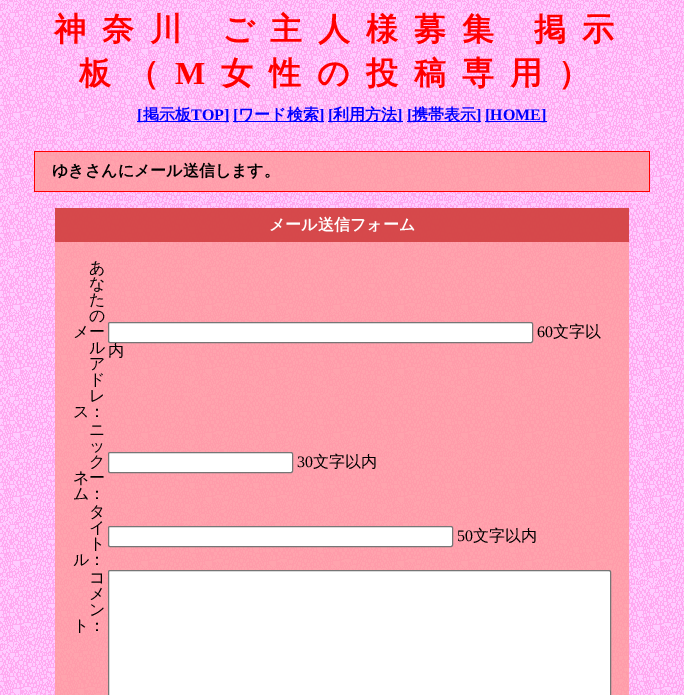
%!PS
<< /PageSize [684 695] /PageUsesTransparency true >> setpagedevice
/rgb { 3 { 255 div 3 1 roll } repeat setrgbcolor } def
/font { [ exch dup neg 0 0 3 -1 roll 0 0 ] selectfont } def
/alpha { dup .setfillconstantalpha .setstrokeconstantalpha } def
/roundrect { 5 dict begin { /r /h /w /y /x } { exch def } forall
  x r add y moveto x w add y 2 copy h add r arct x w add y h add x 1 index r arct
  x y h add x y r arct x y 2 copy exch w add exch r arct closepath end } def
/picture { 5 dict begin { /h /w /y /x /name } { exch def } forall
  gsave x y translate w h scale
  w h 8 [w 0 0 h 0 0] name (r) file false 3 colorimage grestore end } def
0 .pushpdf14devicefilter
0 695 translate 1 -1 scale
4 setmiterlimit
255 255 255 rgb
0 0 684 695 rectfill
(img/1.rgb) 0 0 684 695 picture
[
  [137 121 92 1 0 0 255]
  [233 121 91 1 0 0 255]
  [328 121 75 1 0 0 255]
  [407 121 74 1 0 0 255]
  [485 121 62 1 0 0 255]
] { aload pop rgb rectfill } forall
0.8 alpha
[
  [35 152 614 39 255 153 153]
] { aload pop rgb rectfill } forall
1 alpha
[
  [34 151 616 1 255 0 0]
  [649 151 1 41 255 0 0]
  [34 191 616 1 255 0 0]
  [34 151 1 41 255 0 0]
] { aload pop rgb rectfill } forall
0.8 alpha
[
  [55 208 574 487 255 153 153]
  [55 208 574 34 204 51 51]
] { aload pop rgb rectfill } forall
1 alpha
255 255 255 rgb
108.5 322.5 424 20 1.5 roundrect gsave fill grestore
118 118 118 rgb
stroke
255 255 255 rgb
108.5 452.5 184 20 1.5 roundrect gsave fill grestore
118 118 118 rgb
stroke
255 255 255 rgb
108.5 526.5 344 20 1.5 roundrect gsave fill grestore
118 118 118 rgb
stroke
255 255 255 rgb
108.5 570.5 502 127 1.5 roundrect gsave fill grestore
118 118 118 rgb
stroke
/WenQuanYiZenHei-Bold 32 font
255 0 0 rgb
54 40 moveto -2 0 32 16 0 (神奈川 ご主人様募集 掲示) awidthshow
79 84 moveto 16 0 (板（) ashow
/LiberationSerif-Bold 32 font
175 84 moveto 16 0 (M) ashow
/WenQuanYiZenHei-Bold 32 font
221 84 moveto 16 0 (女性の投稿専用）) ashow
/LiberationSerif-Bold 16 font
0 0 255 rgb
137 120 moveto ([) show
/WenQuanYiZenHei-Bold 16 font
143 120 moveto (掲示板) show
/LiberationSerif-Bold 16 font
191 120 moveto (TOP]) show
233 120 moveto ([) show
/WenQuanYiZenHei-Bold 16 font
238 120 moveto (ワード検索) show
/LiberationSerif-Bold 16 font
319 120 moveto (]) show
328 120 moveto ([) show
/WenQuanYiZenHei-Bold 16 font
333 120 moveto (利用方法) show
/LiberationSerif-Bold 16 font
397 120 moveto (]) show
407 120 moveto ([) show
/WenQuanYiZenHei-Bold 16 font
412 120 moveto (携帯表示) show
/LiberationSerif-Bold 16 font
476 120 moveto (]) show
485 120 moveto ([HOME]) show
/WenQuanYiZenHei-Bold 16 font
0 0 0 rgb
52 176 moveto (ゆきさんにメール送信します。) show
255 255 255 rgb
269 230 moveto (メール送信フォーム) show
/WenQuanYiZenHei-Medium 16 font
0 0 0 rgb
[
  [(あ) 89 273]
  [(な) 89 289]
  [(た) 89 305]
  [(の) 89 321]
  [(メー) 73 337]
  [(ル) 89 353]
  [(ア) 89 369]
  [(ド) 89 385]
  [(レ) 89 401]
  [(ス：) 73 417]
] { aload pop moveto show } forall
/LiberationSerif-Regular 16 font
537 337 moveto (60) show
/WenQuanYiZenHei-Medium 16 font
[
  [(文字以) 553 337]
  [(内) 108 356]
  [(ニ) 89 435]
  [(ッ) 89 451]
  [(ク) 89 467]
  [(ネー) 73 483]
  [(ム：) 73 499]
] { aload pop moveto show } forall
/LiberationSerif-Regular 16 font
297 467 moveto (30) show
/WenQuanYiZenHei-Medium 16 font
[
  [(文字以内) 313 467]
  [(タ) 89 517]
  [(イ) 89 533]
  [(ト) 89 549]
  [(ル：) 73 565]
] { aload pop moveto show } forall
/LiberationSerif-Regular 16 font
457 541 moveto (50) show
/WenQuanYiZenHei-Medium 16 font
[
  [(文字以内) 473 541]
  [(コ) 89 583]
  [(メ) 89 599]
  [(ン) 89 615]
  [(ト：) 73 631]
] { aload pop moveto show } forall
.poppdf14devicefilter showpage
